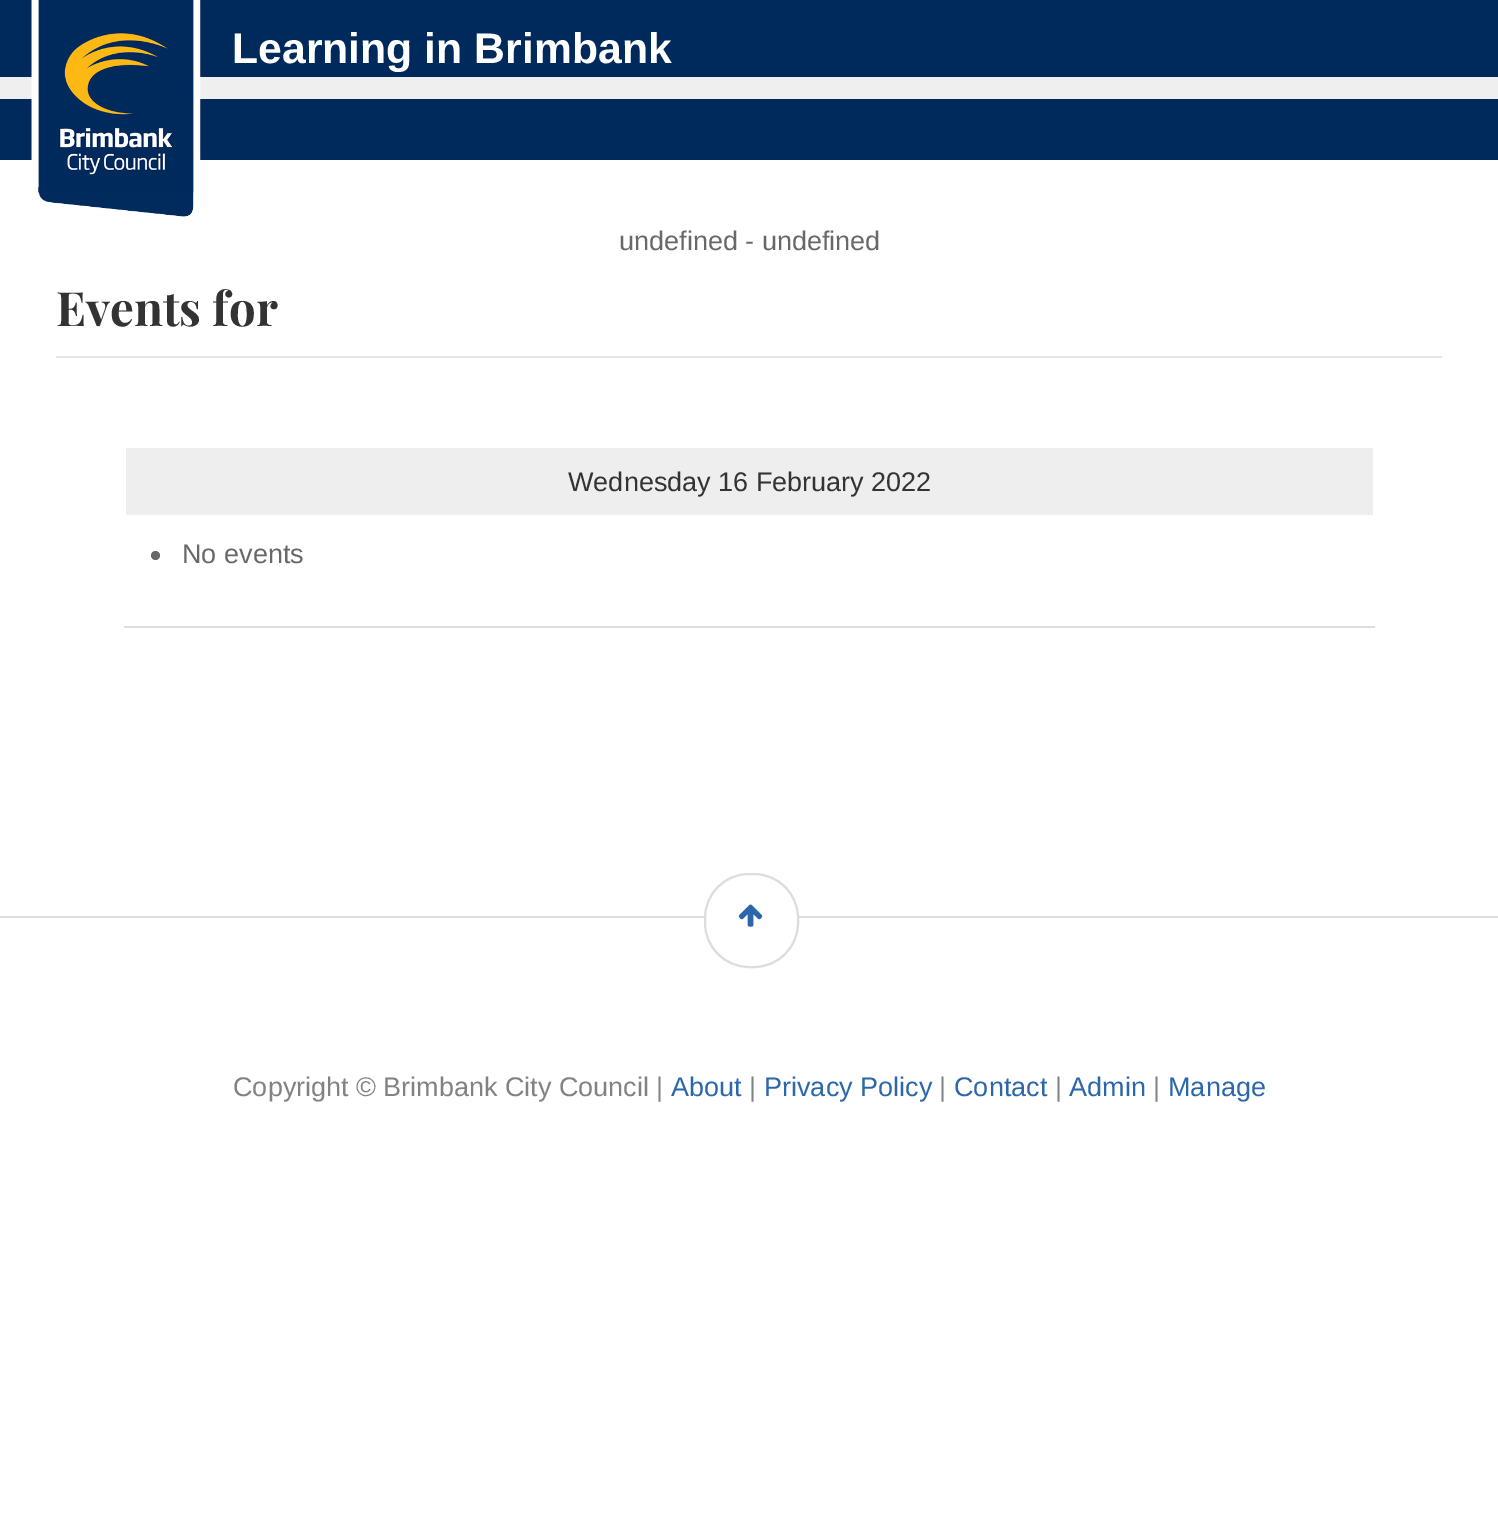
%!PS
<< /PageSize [1498 1534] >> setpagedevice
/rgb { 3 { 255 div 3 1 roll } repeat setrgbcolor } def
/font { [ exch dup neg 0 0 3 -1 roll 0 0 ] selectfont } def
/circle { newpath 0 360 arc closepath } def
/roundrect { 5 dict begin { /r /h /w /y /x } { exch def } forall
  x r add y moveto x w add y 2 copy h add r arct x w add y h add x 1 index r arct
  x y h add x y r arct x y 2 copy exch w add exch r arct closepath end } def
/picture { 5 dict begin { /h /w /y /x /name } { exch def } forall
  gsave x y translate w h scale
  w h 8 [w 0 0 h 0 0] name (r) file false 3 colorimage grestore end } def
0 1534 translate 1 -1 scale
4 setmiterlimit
255 255 255 rgb
0 0 1498 1534 rectfill
0 42 92 rgb
0 0 1498 160 rectfill
239 239 239 rgb
0 77 1498 22 rectfill
(img/1.rgb) 31 0 170 217 picture
[
  [56 356 1386 2 229 229 229]
  [126 448 1247 67 238 238 238]
  [124 626 1251 2 221 221 221]
] { aload pop rgb rectfill } forall
104 104 104 rgb
155.5 555.5 4.5 circle fill
221 221 221 rgb
0 916 1498 2 rectfill
255 255 255 rgb
705 874 93 93 44 roundrect gsave fill grestore
221 221 221 rgb
2 setlinewidth
stroke
(img/2.rgb) 738 904 25 23 picture
/LiberationSans-Bold 42.75 font
255 255 255 rgb
232 63 moveto (Learning in Brimbank) show
/LiberationSans-Regular 27 font
104 104 104 rgb
619 250 moveto (undefined - undefined) show
/PlayfairDisplay-Bold 47.25 font
51 51 51 rgb
56 326 moveto (Events for) show
/LiberationSans-Regular 27 font
568 491 moveto (Wednesday 16 February 2022) show
104 104 104 rgb
182 563 moveto (No events) show
130 130 130 rgb
233 1096 moveto (Copyright © Brimbank City Council |) show
44 103 171 rgb
671 1096 moveto (About) show
130 130 130 rgb
749 1096 moveto (|) show
44 103 171 rgb
764 1096 moveto (Privacy Policy) show
130 130 130 rgb
939 1096 moveto (|) show
44 103 171 rgb
954 1096 moveto (Contact) show
130 130 130 rgb
1055 1096 moveto (|) show
44 103 171 rgb
1069 1096 moveto (Admin) show
130 130 130 rgb
1153 1096 moveto (|) show
44 103 171 rgb
1168 1096 moveto (Manage) show
showpage
